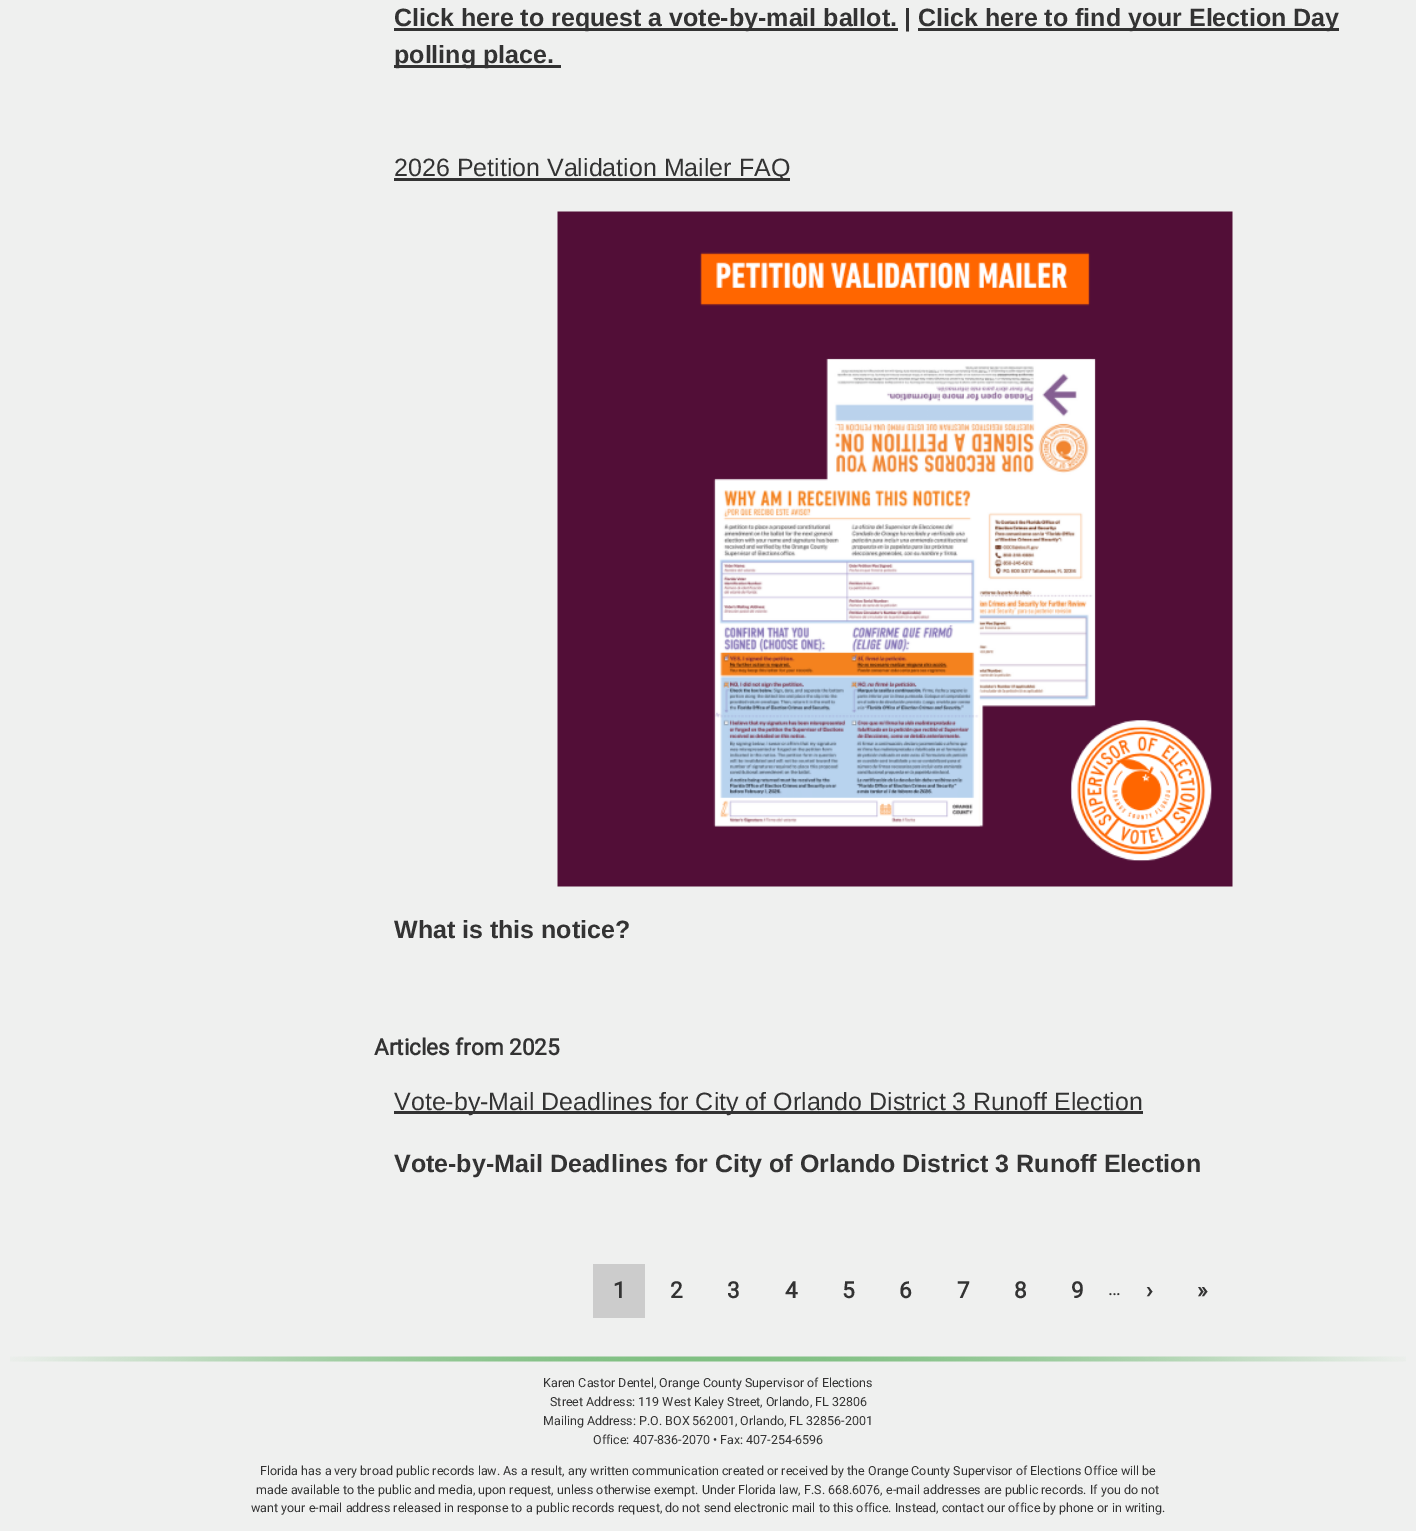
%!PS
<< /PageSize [1416 1531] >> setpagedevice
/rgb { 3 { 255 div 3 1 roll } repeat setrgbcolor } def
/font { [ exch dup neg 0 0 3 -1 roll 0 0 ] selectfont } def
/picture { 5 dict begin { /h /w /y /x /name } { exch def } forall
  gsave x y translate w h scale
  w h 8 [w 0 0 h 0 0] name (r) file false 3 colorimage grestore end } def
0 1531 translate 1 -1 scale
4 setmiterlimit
239 240 239 rgb
0 0 1416 1531 rectfill
[
  [394 28 504 3 51 51 51]
  [918 28 421 3 51 51 51]
  [394 65 167 3 51 51 51]
  [394 178 396 3 51 51 51]
] { aload pop rgb rectfill } forall
(img/1.rgb) 557 211 676 676 picture
394 1111 749 3 rectfill
204 204 204 rgb
593 1264 52 54 rectfill
(img/2.rgb) 10 1356 1396 6 picture
/LiberationSans-Bold 25 font
51 51 51 rgb
[
  [(Click here to request a vote-by-mail ballot. |) 394 26]
  [(Click here to find your Election Day) 918 26]
  [(polling place.) 394 63]
] { aload pop moveto show } forall
/LiberationSans-Regular 25 font
394 176 moveto (2026 Petition Validation Mailer FAQ) show
/LiberationSans-Bold 25 font
394 938 moveto (What is this notice?) show
/Roboto-Bold 22.5 font
374 1055 moveto (Articles from 2025) show
/LiberationSans-Regular 25 font
394 1110 moveto (Vote-by-Mail Deadlines for City of Orlando District 3 Runoff Election) show
/LiberationSans-Bold 25 font
394 1172 moveto (Vote-by-Mail Deadlines for City of Orlando District 3 Runoff Election) show
/Roboto-Bold 22.5 font
[
  [(1) 613 1298]
  [(2) 670 1298]
  [(3) 727 1298]
  [(4) 785 1298]
  [(5) 842 1298]
  [(6) 899 1298]
  [(7) 957 1298]
  [(8) 1014 1298]
  [(9) 1071 1298]
] { aload pop moveto show } forall
/Roboto-Regular 19 font
1108 1295 moveto (…) show
/Roboto-Bold 22.5 font
1146 1298 moveto (›) show
1197 1298 moveto (») show
/Roboto-Regular 12.5 font
[
  [(Karen Castor Dentel, Orange County Supervisor of Elections) 543 1387]
  [(Street Address: 119 West Kaley Street, Orlando, FL 32806) 550 1406]
  [(Mailing Address: P.O. BOX 562001, Orlando, FL 32856-2001) 543 1425]
  [(Office: 407-836-2070 • Fax: 407-254-6596) 593 1444]
  [(Florida has a very broad public records law. As a result, any written communication created or received by the Orange County Supervisor of Elections Office will be) 260 1475]
  [(made available to the public and media, upon request, unless otherwise exempt. Under Florida law, F.S. 668.6076, e-mail addresses are public records. If you do not) 256 1494]
  [(want your e-mail address released in response to a public records request, do not send electronic mail to this office. Instead, contact our office by phone or in writing.) 251 1512]
] { aload pop moveto show } forall
showpage
